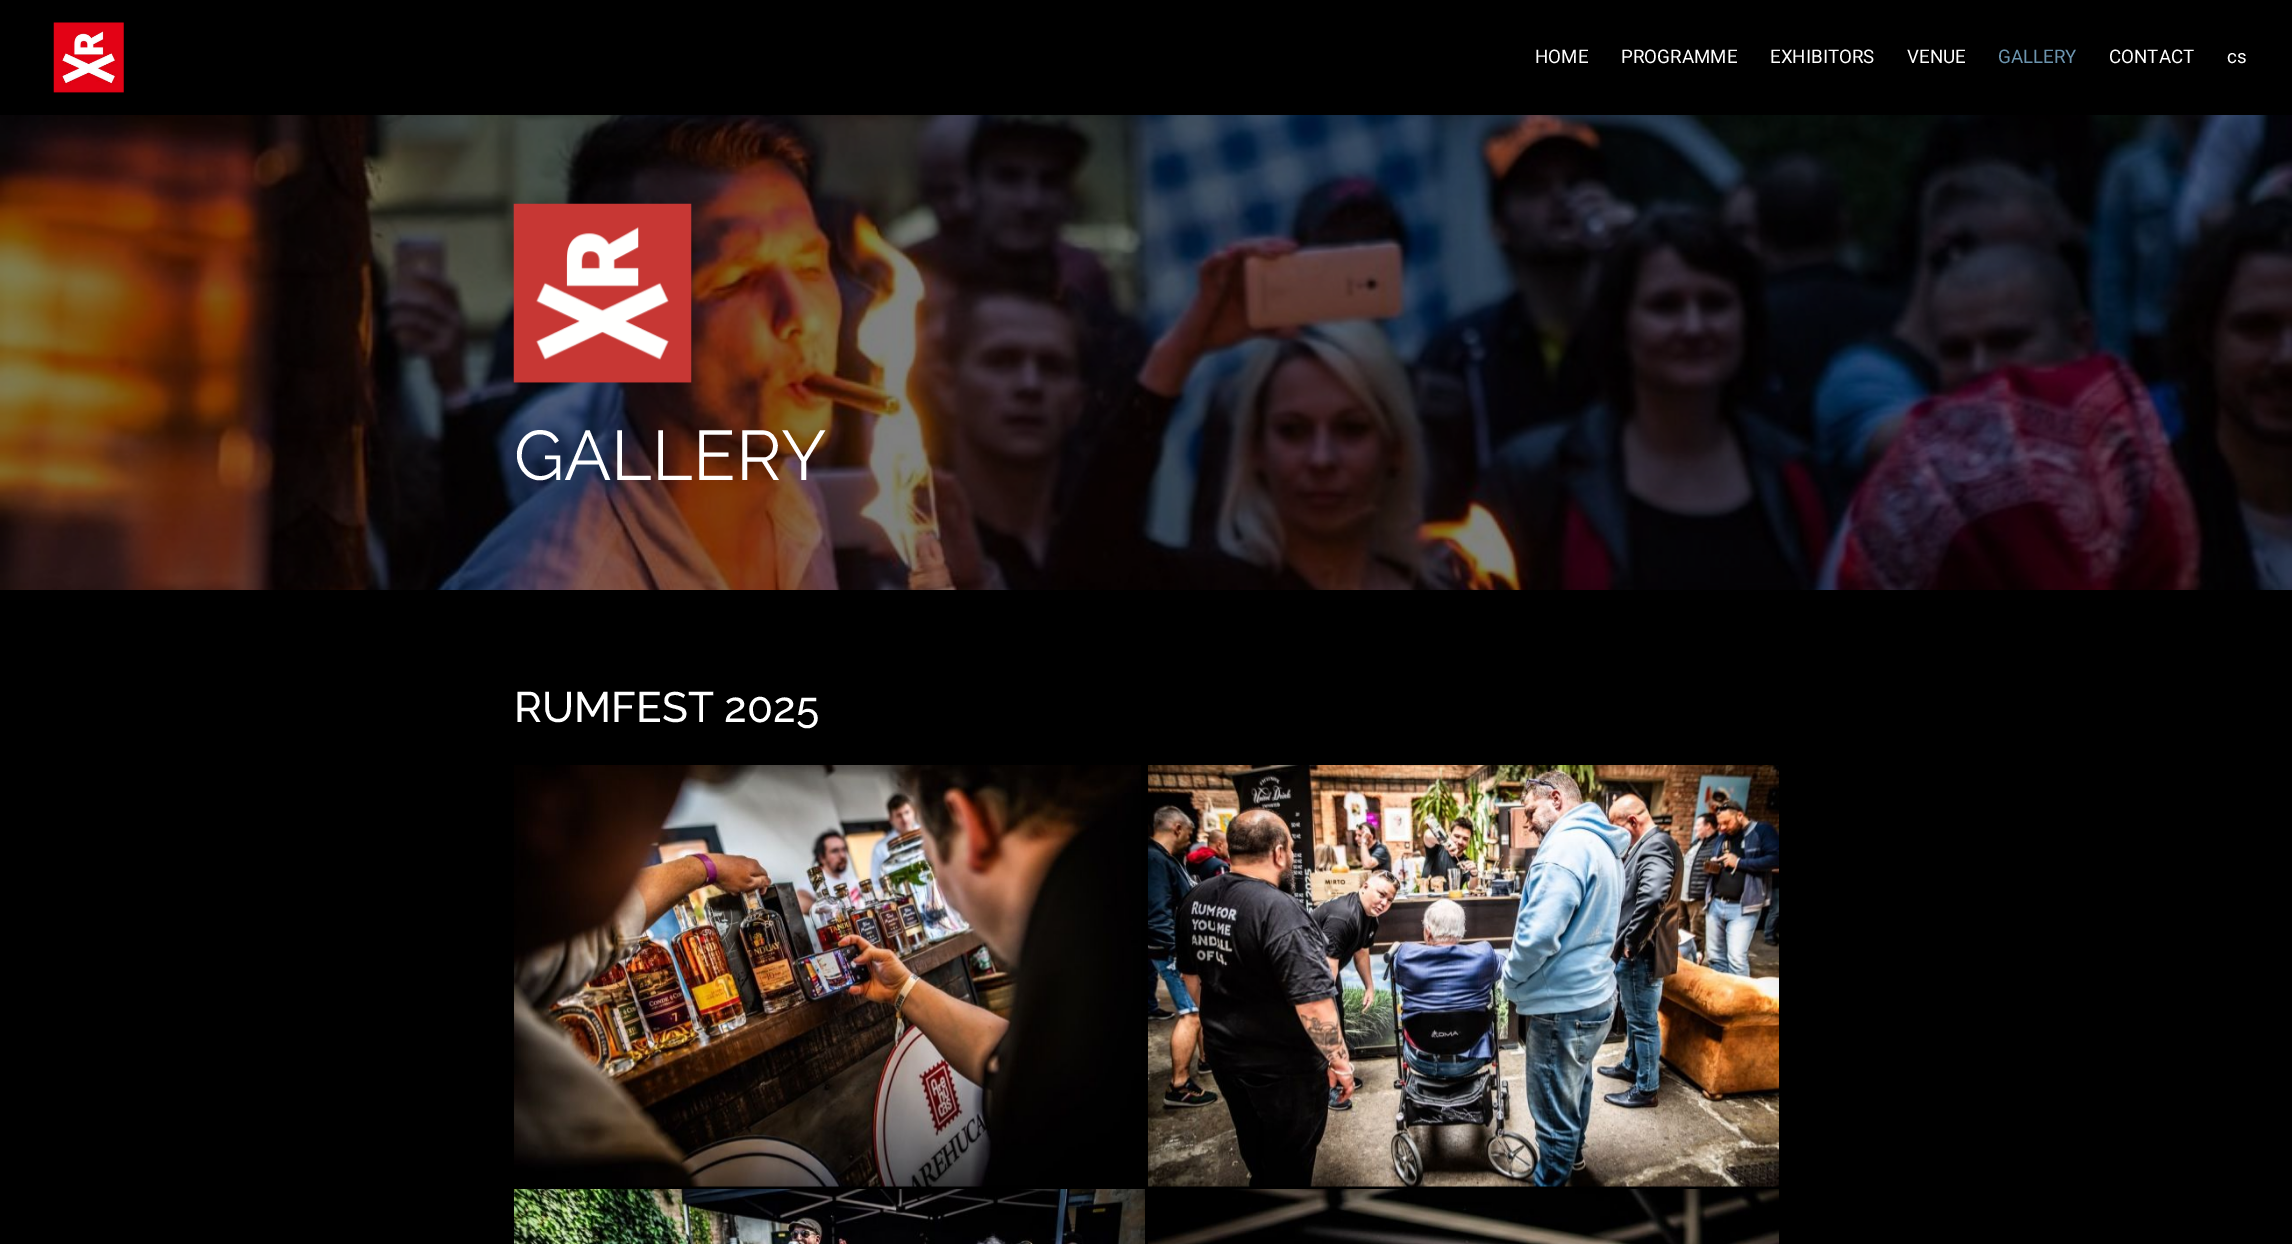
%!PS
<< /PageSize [2292 1244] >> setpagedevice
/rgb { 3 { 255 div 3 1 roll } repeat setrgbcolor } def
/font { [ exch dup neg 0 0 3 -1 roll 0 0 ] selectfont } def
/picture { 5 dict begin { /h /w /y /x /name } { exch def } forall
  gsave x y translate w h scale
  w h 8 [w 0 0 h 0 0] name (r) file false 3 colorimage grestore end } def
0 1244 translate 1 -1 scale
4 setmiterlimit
255 255 255 rgb
0 0 2292 1244 rectfill
0 0 0 rgb
0 0 2292 115 rectfill
(img/1.rgb) 53 22 71 71 picture
(img/2.rgb) 0 115 2292 475 picture
(img/3.rgb) 513 203 179 180 picture
0 590 2292 654 rectfill
(img/4.rgb) 514 765 627 422 picture
(img/5.rgb) 1148 765 631 422 picture
(img/6.rgb) 514 1189 631 55 picture
(img/7.rgb) 1148 1189 631 55 picture
/Roboto-Regular 18.75 font
255 255 255 rgb
[
  [(HOME) 1535 63]
  [(PROGRAMME) 1621 63]
  [(EXHIBITORS) 1770 63]
  [(VENUE) 1907 63]
] { aload pop moveto show } forall
108 148 174 rgb
1998 63 moveto (GALLERY) show
255 255 255 rgb
2109 63 moveto (CONTACT) show
2227 63 moveto (cs) show
/Raleway-Regular 70 font
514 480 moveto (GALLERY) show
/Raleway-Medium 42.5 font
514 722 moveto (RUMFEST 2025) show
showpage
